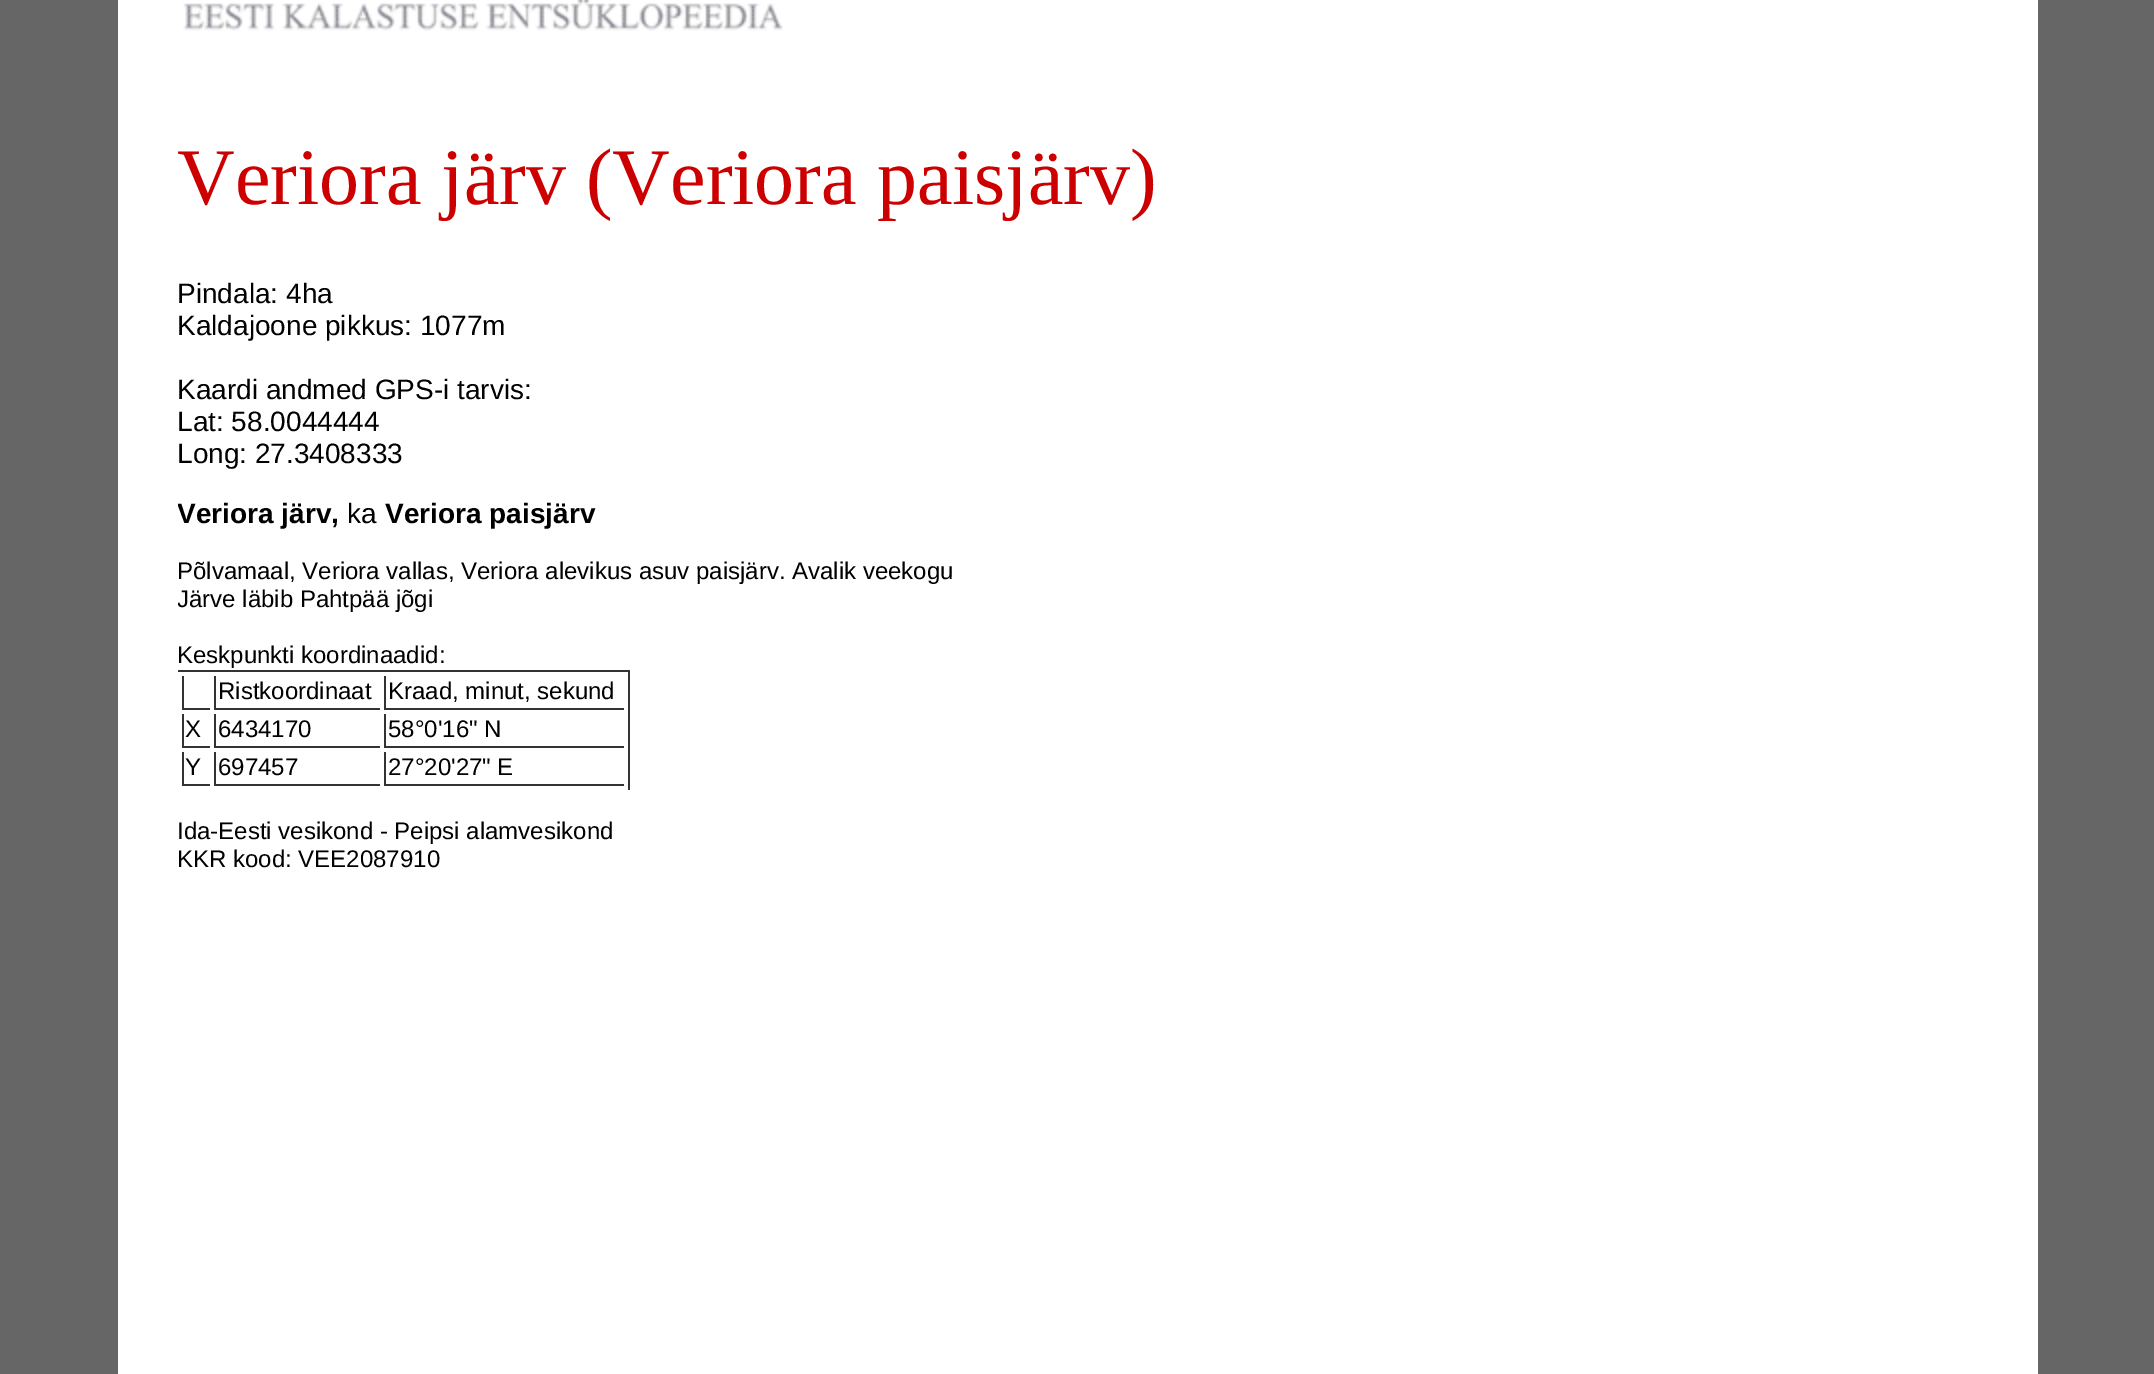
%!PS
<< /PageSize [2154 1374] >> setpagedevice
/rgb { 3 { 255 div 3 1 roll } repeat setrgbcolor } def
/font { [ exch dup neg 0 0 3 -1 roll 0 0 ] selectfont } def
/picture { 5 dict begin { /h /w /y /x /name } { exch def } forall
  gsave x y translate w h scale
  w h 8 [w 0 0 h 0 0] name (r) file false 3 colorimage grestore end } def
0 1374 translate 1 -1 scale
4 setmiterlimit
102 102 102 rgb
0 0 2154 1374 rectfill
255 255 255 rgb
118 0 1920 1374 rectfill
(img/1.rgb) 183 0 600 31 picture
[
  [178 670 452 2 51 51 51]
  [628 670 2 120 51 51 51]
  [182 708 28 2 51 51 51]
  [182 676 2 34 51 51 51]
  [214 708 166 2 51 51 51]
  [214 676 2 34 51 51 51]
  [384 708 240 2 51 51 51]
  [384 676 2 34 51 51 51]
  [182 746 28 2 51 51 51]
  [182 714 2 34 51 51 51]
  [214 746 166 2 51 51 51]
  [214 714 2 34 51 51 51]
  [384 746 240 2 51 51 51]
  [384 714 2 34 51 51 51]
  [182 784 28 2 51 51 51]
  [182 752 2 34 51 51 51]
  [214 784 166 2 51 51 51]
  [214 752 2 34 51 51 51]
  [384 784 240 2 51 51 51]
  [384 752 2 34 51 51 51]
] { aload pop rgb rectfill } forall
/LiberationSerif-Regular 80 font
204 0 0 rgb
177 204 moveto (Veriora järv \(Veriora paisjärv\)) show
/LiberationSans-Regular 28 font
0 0 0 rgb
[
  [(Pindala: 4ha) 177 303]
  [(Kaldajoone pikkus: 1077m) 177 335]
  [(Kaardi andmed GPS-i tarvis:) 177 399]
  [(Lat: 58.0044444) 177 431]
  [(Long: 27.3408333) 177 463]
] { aload pop moveto show } forall
gsave
178 56 1800 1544 rectclip
/LiberationSans-Bold 28 font
177 523 moveto (Veriora järv,) show
grestore
347 523 moveto (ka) show
/LiberationSans-Bold 28 font
385 523 moveto (Veriora paisjärv) show
/LiberationSans-Regular 24 font
177 579 moveto (Põlvamaal, Veriora vallas, Veriora alevikus asuv paisjärv. Avalik veekogu) show
gsave
178 56 1800 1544 rectclip
177 607 moveto (Järve läbib Pahtpää jõgi) show
grestore
[
  [(Keskpunkti koordinaadid:) 177 663]
  [(Ristkoordinaat) 218 699]
  [(Kraad, minut, sekund) 388 699]
  [(X) 185 737]
  [(6434170) 218 737]
  [(58°0'16" N) 388 737]
  [(Y) 185 775]
  [(697457) 218 775]
  [(27°20'27" E) 388 775]
  [(Ida-Eesti vesikond - Peipsi alamvesikond) 177 839]
  [(KKR kood: VEE2087910) 177 867]
] { aload pop moveto show } forall
showpage
